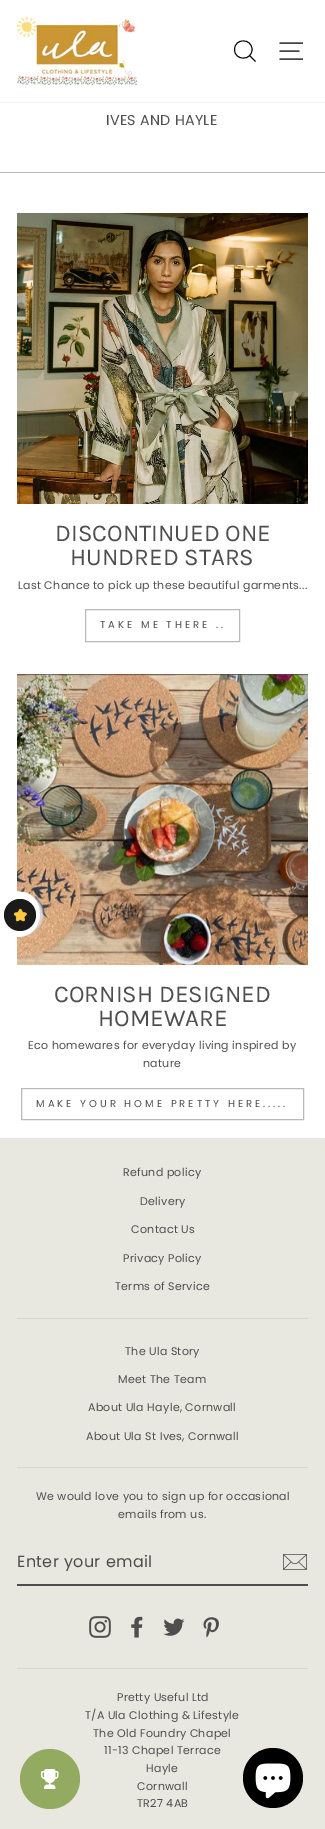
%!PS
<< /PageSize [325 1829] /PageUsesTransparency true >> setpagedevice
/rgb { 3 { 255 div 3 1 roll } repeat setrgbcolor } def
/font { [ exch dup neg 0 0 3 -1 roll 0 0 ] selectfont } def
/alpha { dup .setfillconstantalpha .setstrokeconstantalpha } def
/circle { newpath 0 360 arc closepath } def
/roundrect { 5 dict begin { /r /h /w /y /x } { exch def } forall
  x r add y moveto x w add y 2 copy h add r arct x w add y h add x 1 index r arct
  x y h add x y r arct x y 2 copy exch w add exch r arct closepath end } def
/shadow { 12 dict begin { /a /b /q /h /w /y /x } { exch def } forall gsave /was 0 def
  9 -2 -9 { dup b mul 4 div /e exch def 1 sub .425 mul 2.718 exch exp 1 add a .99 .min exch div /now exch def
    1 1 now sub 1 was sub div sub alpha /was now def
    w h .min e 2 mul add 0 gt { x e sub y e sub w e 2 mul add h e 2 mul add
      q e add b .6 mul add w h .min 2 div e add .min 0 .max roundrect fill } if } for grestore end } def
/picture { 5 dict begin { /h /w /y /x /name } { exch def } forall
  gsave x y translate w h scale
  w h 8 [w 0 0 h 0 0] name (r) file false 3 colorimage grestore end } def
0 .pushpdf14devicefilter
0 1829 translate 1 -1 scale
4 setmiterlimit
255 255 255 rgb
0 0 325 1829 rectfill
0 0 0 rgb
0 0 325 102 0 0.5 0.2 shadow
255 255 255 rgb
0 0 325 102 rectfill
(img/1.rgb) 17 17 120 68 picture
0 0 0 rgb
0.9 setlinewidth
252 49.5 moveto 252 61 234.5 61 234.5 49.5 curveto 234.5 38 252 38 252 49.5 curveto closepath 255.5 61.5 moveto 249.5 55.5 lineto stroke
279.5 43 moveto 303 43 lineto 279.5 51 moveto 299.5 51 lineto 279.5 59 moveto 303 59 lineto stroke
186 186 186 rgb
0 172 325 1 rectfill
(img/2.rgb) 17 213 291 291 picture
1 setlinewidth
85.5 609.5 154 32 rectstroke
(img/3.rgb) 17 674 291 291 picture
21.5 1088.5 282 31 rectstroke
[
  [0 1138 325 691 232 232 225]
  [17 1318 291 1 214 214 207]
  [17 1467 291 1 214 214 207]
  [17 1584 291 2 78 78 78]
] { aload pop rgb rectfill } forall
(img/4.rgb) 283 1554 24 16 picture
(img/5.rgb) 89 1616 22 22 picture
(img/6.rgb) 131 1616 12 22 picture
(img/7.rgb) 163 1618 22 18 picture
(img/8.rgb) 203 1617 16 21 picture
214 214 207 rgb
17 1668 291 1 rectfill
218 218 218 rgb
-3 894 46 40 22 1 1 shadow
255 255 255 rgb
0 937 moveto 0 892 lineto 8 892 19 890 27 893 curveto 48 903 42 937 18 937 curveto closepath fill
26 26 26 rgb
20 915 16 circle fill
(img/9.rgb) 13 908 14 14 picture
147 171 97 rgb
50 1779 30 circle fill
(img/10.rgb) 41 1769 18 20 picture
0 0 0 rgb
273 1778 30 circle fill
(img/11.rgb) 255 1763 36 36 picture
/Poppins-Regular 14.25 font
78 78 78 rgb
106 125 moveto 0.28 0 (IVES AND HAYLE) ashow
/Karla-Regular 24.1 font
55 541 moveto (DISCONTINUED ONE) show
70 565 moveto (HUNDRED STARS) show
/Poppins-Regular 11.05 font
18 589 moveto 0.28 0 (Last Chance to pick up these beautiful garments...) ashow
/Poppins-Regular 10 font
100 628 moveto 3 0 (TAKE ME THERE ..) ashow
/Karla-Regular 24.1 font
54 1002 moveto (CORNISH DESIGNED) show
98 1026 moveto (HOMEWARE) show
/Poppins-Regular 11.05 font
28 1049 moveto 0.28 0 (Eco homewares for everyday living inspired by) ashow
143 1067 moveto 0.28 0 (nature) ashow
/Poppins-Regular 10 font
36 1107 moveto 3 0 (MAKE YOUR HOME PRETTY HERE.....) ashow
/Poppins-Regular 11.05 font
123 1176 moveto 0.28 0 (Refund policy) ashow
140 1205 moveto 0.28 0 (Delivery) ashow
131 1233 moveto 0.28 0 (Contact Us) ashow
123 1262 moveto 0.28 0 (Privacy Policy) ashow
115 1290 moveto 0.28 0 (Terms of Service) ashow
125 1355 moveto 0.28 0 (The Ula Story) ashow
118 1383 moveto 0.28 0 (Meet The Team) ashow
88 1411 moveto 0.28 0 (About Ula Hayle, Cornwall) ashow
86 1440 moveto 0.28 0 (About Ula St Ives, Cornwall) ashow
36 1500 moveto 0.28 0 (We would love you to sign up for occasional) ashow
118 1518 moveto 0.28 0 (emails from us.) ashow
/Poppins-Regular 16 font
17 1567 moveto 0.4 0 (Enter your email) ashow
/Poppins-Regular 11.05 font
117 1701 moveto 0.28 0 (Pretty Useful Ltd) ashow
85 1719 moveto 0.28 0 (T/A Ula Clothing & Lifestyle) ashow
93 1737 moveto 0.28 0 (The Old Foundry Chapel) ashow
104 1754 moveto 0.28 0 (11-13 Chapel Terrace) ashow
146 1772 moveto 0.28 0 (Hayle) ashow
137 1790 moveto 0.28 0 (Cornwall) ashow
137 1807 moveto 0.28 0 (TR27 4AB) ashow
.poppdf14devicefilter showpage
